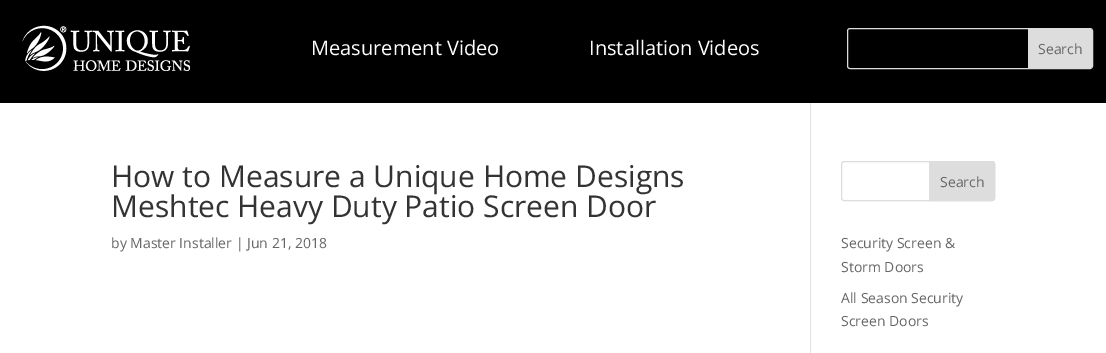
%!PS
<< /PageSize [1106 353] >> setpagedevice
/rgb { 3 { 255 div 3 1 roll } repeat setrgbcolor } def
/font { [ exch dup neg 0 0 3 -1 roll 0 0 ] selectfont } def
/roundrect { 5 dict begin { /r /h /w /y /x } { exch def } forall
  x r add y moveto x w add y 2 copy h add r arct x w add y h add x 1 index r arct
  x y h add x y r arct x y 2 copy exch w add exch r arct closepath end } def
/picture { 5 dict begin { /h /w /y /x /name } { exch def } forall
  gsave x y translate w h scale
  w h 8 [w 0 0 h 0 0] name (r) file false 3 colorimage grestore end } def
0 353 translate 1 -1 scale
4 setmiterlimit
255 255 255 rgb
0 0 1106 353 rectfill
0 0 0 rgb
0 0 1106 103 rectfill
(img/1.rgb) 22 25 168 46 picture
221 221 221 rgb
847.5 28.5 245 40 2.5 roundrect stroke
1028 29 moveto 1090 29 lineto 1091 29 1092 30 1092 31 curveto 1092 66 lineto 1092 67 1091 68 1090 68 curveto 1028 68 lineto closepath fill
226 226 226 rgb
810 103 1 250 rectfill
221 221 221 rgb
841.5 161.5 153 39 2.5 roundrect stroke
929.5 161.5 moveto 992 161.5 lineto 993.5 161.5 994.5 162.5 994.5 164 curveto 994.5 198 lineto 994.5 199.5 993.5 200.5 992 200.5 curveto 929.5 200.5 lineto closepath gsave fill grestore
stroke
/OpenSans-Regular 20 font
255 255 255 rgb
311 55 moveto (Measurement Video) show
589 55 moveto (Installation Videos) show
/OpenSans-Regular 14 font
102 102 102 rgb
1038 54 moveto (Search) show
/OpenSans-Regular 30 font
51 51 51 rgb
111 187 moveto (How to Measure a Unique Home Designs) show
111 217 moveto (Meshtec Heavy Duty Patio Screen Door) show
/OpenSans-Regular 14 font
102 102 102 rgb
[
  [(by Master Installer | Jun 21, 2018) 111 248]
  [(Search) 940 187]
  [(Security Screen &) 841 248]
  [(Storm Doors) 841 272]
  [(All Season Security) 841 303]
  [(Screen Doors) 841 326]
] { aload pop moveto show } forall
showpage
